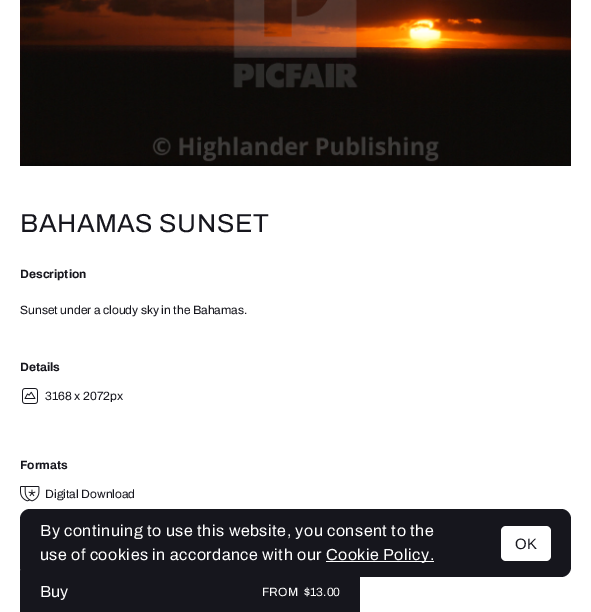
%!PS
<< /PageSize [591 612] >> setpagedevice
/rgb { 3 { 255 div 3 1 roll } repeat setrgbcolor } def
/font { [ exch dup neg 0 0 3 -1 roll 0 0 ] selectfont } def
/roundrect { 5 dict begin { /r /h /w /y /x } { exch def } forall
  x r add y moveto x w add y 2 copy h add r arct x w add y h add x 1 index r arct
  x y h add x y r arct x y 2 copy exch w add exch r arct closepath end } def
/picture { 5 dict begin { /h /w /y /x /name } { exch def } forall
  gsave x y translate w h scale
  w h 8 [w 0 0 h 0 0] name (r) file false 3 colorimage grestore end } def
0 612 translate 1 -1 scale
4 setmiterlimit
255 255 255 rgb
0 0 591 612 rectfill
(img/1.rgb) 20 0 551 166 picture
(img/2.rgb) 22 388 16 16 picture
(img/3.rgb) 20 486 20 16 picture
22 22 29 rgb
20 568 340 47 4 roundrect fill
20 509 551 68 10 roundrect fill
255 255 255 rgb
326 561 108 1 rectfill
501 526 50 35 5 roundrect fill
/Archivo-Regular 26 font
22 22 29 rgb
20 232 moveto 0.5 0 (BAHAMAS SUNSET) ashow
/Archivo-Bold 12 font
20 278 moveto (Description) show
/Archivo-Regular 12 font
20 314 moveto (Sunset under a cloudy sky in the Bahamas.) show
/Archivo-Bold 12 font
20 371 moveto (Details) show
/Archivo-Regular 12 font
45 400 moveto (3168 x 2072px) show
/Archivo-Bold 12 font
20 469 moveto (Formats) show
/Archivo-Regular 12 font
45 498 moveto (Digital Download) show
/Archivo-Regular 16 font
255 255 255 rgb
40 597 moveto (Buy) show
/Archivo-Regular 12 font
262 596 moveto (FROM) show
304 596 moveto ($13.00) show
/Archivo-Regular 16 font
40 536 moveto 0.5 0 (By continuing to use this website, you consent to the) ashow
40 560 moveto 0.5 0 (use of cookies in accordance with our) ashow
326 560 moveto 0.5 0 (Cookie Policy.) ashow
/LiberationSans-Regular 15 font
22 22 29 rgb
515 549 moveto (OK) show
showpage
